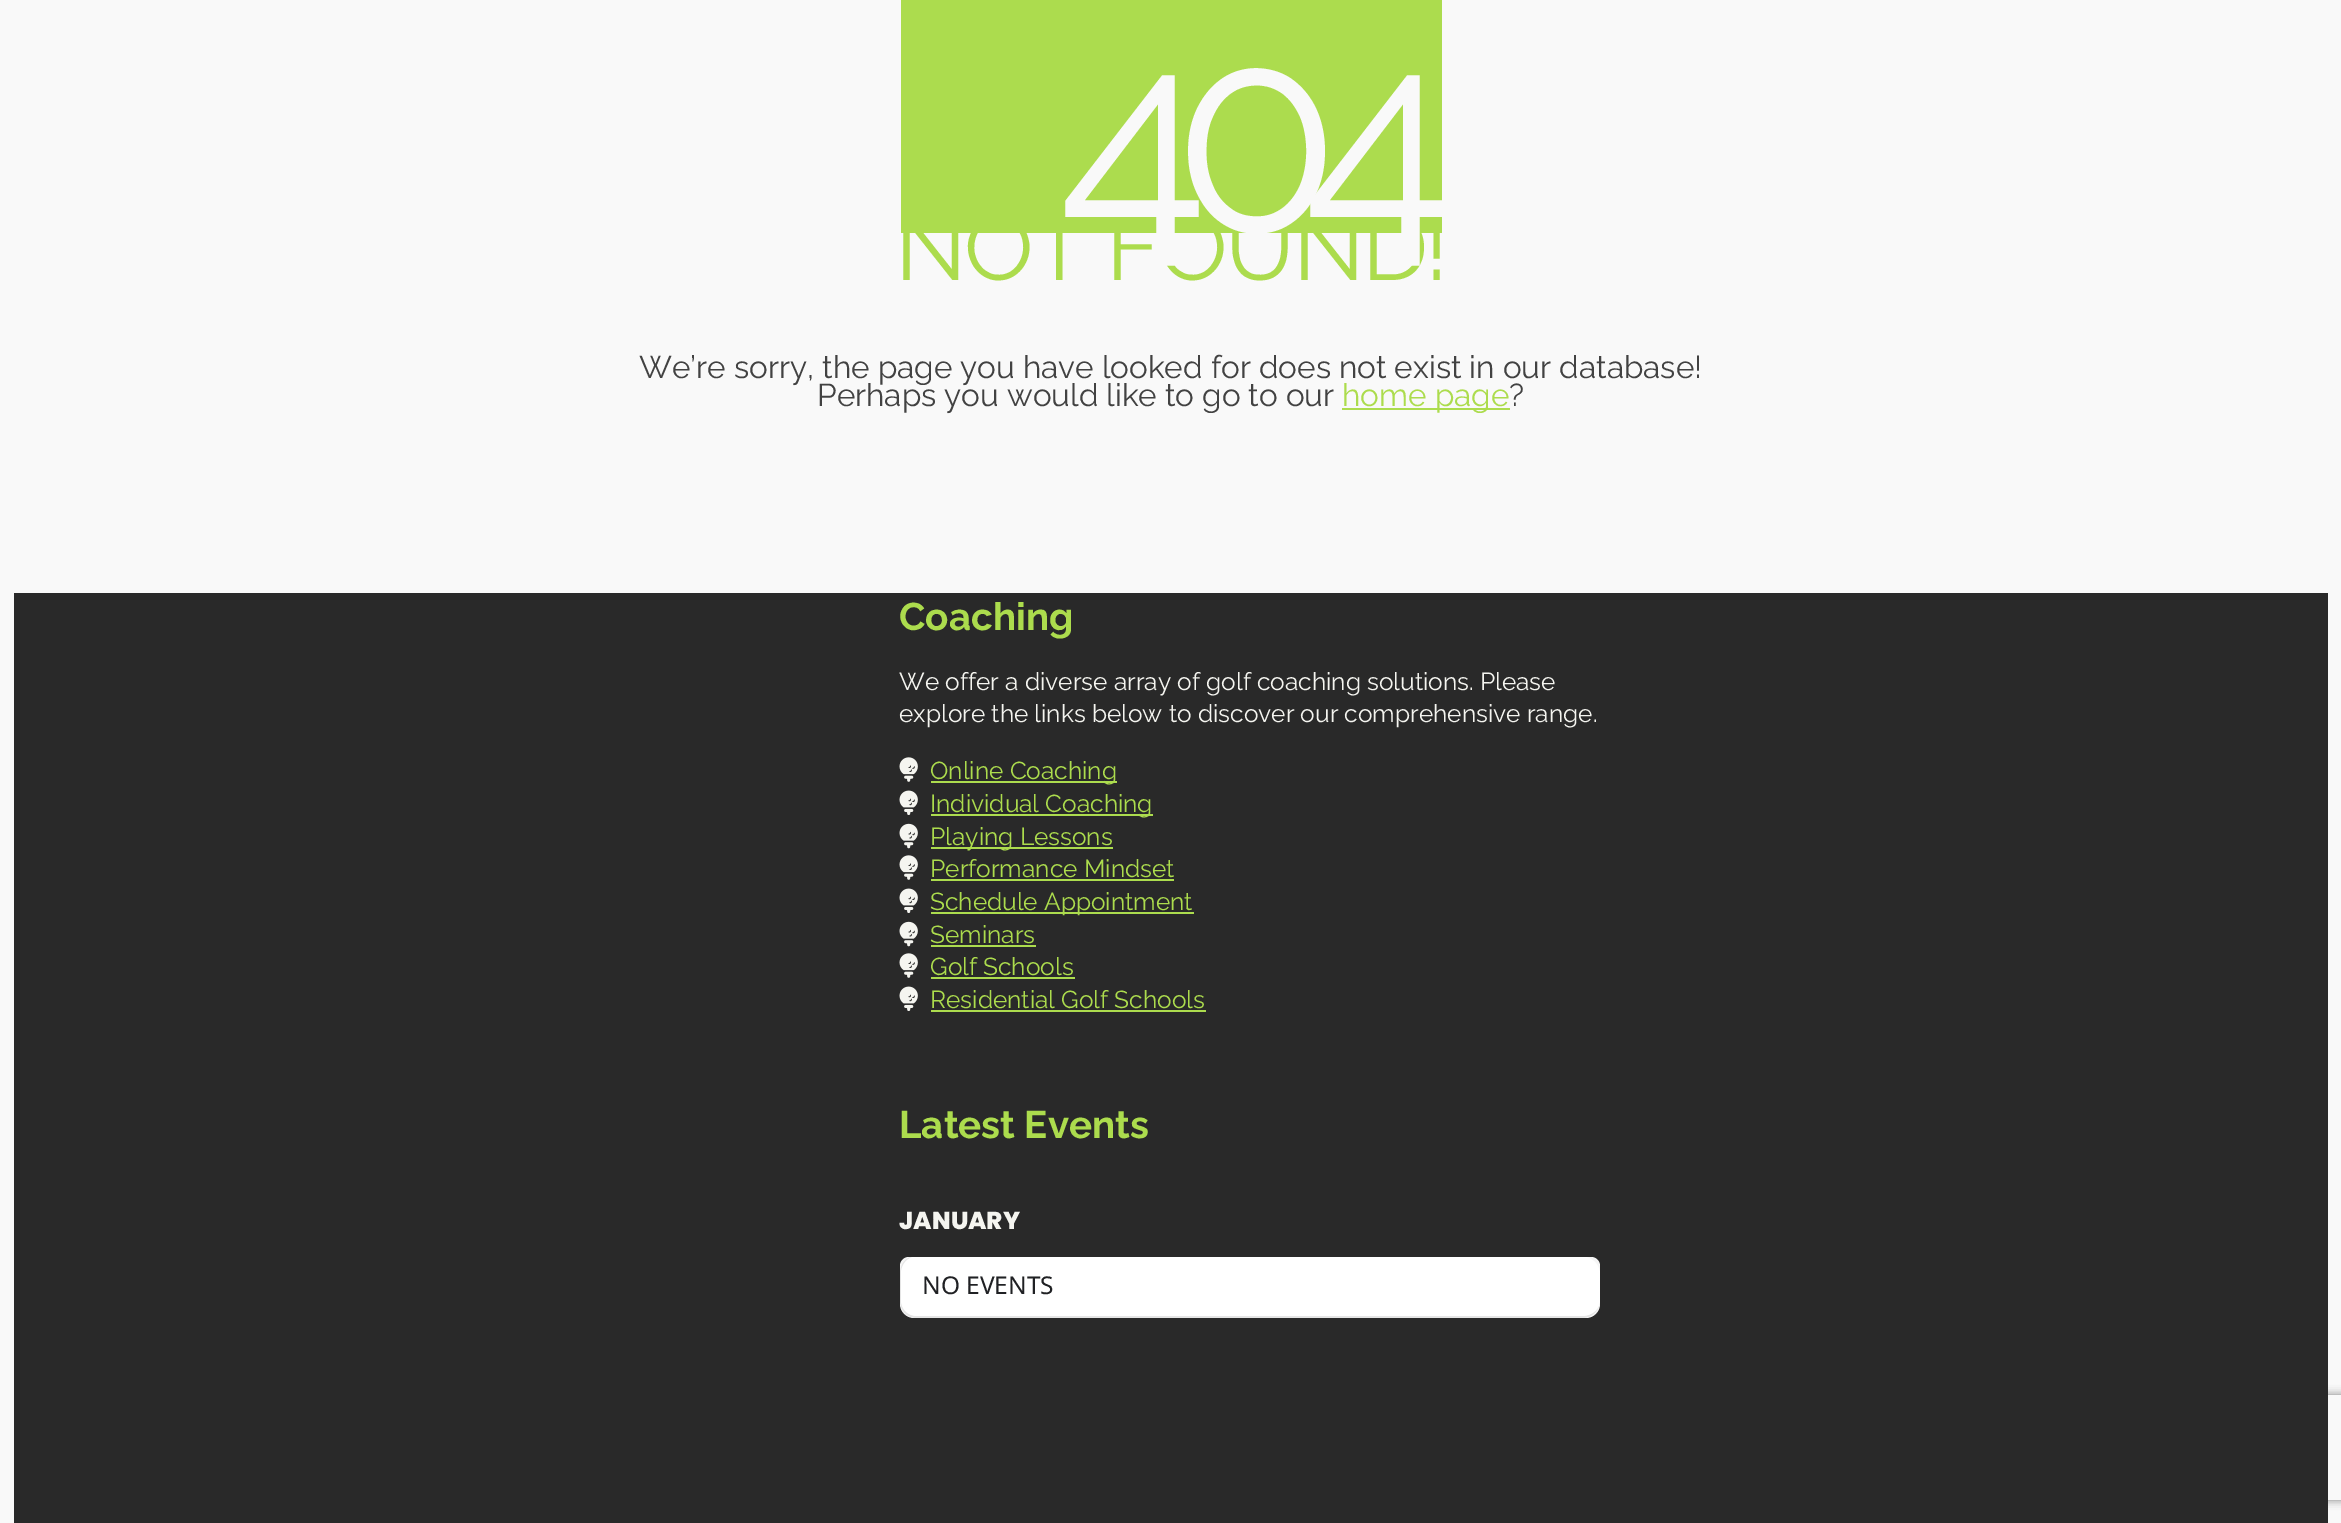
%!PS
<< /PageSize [2341 1523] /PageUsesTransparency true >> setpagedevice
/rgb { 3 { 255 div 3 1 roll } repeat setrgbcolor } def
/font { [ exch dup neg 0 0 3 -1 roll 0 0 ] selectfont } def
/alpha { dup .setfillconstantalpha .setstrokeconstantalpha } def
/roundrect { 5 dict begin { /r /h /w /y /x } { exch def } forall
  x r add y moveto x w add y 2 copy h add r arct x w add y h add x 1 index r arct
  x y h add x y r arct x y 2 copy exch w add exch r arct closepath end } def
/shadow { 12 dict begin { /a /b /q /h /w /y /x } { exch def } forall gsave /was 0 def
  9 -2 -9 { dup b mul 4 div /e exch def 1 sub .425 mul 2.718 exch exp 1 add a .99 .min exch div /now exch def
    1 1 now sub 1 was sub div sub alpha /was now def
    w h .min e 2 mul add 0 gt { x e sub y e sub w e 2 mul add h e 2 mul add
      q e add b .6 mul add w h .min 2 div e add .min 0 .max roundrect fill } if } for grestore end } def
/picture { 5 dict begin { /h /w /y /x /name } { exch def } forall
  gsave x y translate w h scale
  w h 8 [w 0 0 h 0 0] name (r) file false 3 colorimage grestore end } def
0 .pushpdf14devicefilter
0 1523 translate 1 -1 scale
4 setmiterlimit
249 249 249 rgb
0 0 2341 1523 rectfill
172 220 78 rgb
1342 408 168 2 rectfill
gsave
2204 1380 moveto 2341 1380 lineto 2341 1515 lineto 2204 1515 lineto closepath 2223 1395 moveto 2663 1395 lineto 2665 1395 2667 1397 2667 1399 curveto 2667 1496 lineto 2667 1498 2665 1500 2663 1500 curveto 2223 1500 lineto 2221 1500 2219 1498 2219 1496 curveto 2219 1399 lineto 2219 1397 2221 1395 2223 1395 curveto closepath eoclip newpath
128 128 128 rgb
2219 1395 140 105 4 4.5 1 shadow
grestore
41 41 41 rgb
14 593 2314 930 rectfill
(img/1.rgb) 899 757 19 25 picture
172 220 78 rgb
931 781 186 2 rectfill
(img/2.rgb) 899 790 19 25 picture
931 814 222 2 rectfill
(img/3.rgb) 899 823 19 26 picture
931 847 182 2 rectfill
(img/1.rgb) 899 855 19 25 picture
931 879 243 2 rectfill
(img/2.rgb) 899 888 19 25 picture
931 912 263 2 rectfill
(img/3.rgb) 899 921 19 26 picture
931 945 105 2 rectfill
(img/1.rgb) 899 953 19 25 picture
931 977 144 2 rectfill
(img/2.rgb) 899 986 19 25 picture
931 1010 275 2 rectfill
245 245 245 rgb
909 1257 moveto 1591 1257 lineto 1596 1257 1600 1261 1600 1266 curveto 1600 1304 lineto 1600 1311.5 1593.5 1318 1586 1318 curveto 914 1318 lineto 906.5 1318 900 1311.5 900 1304 curveto 900 1266 lineto 900 1261 904 1257 909 1257 curveto closepath fill
229 229 229 rgb
912 1257 moveto 911 1257 lineto 904 1259 900 1266 900 1274 curveto 900 1300 lineto 900 1310 907 1318 917 1318 curveto 1582 1318 lineto 1592 1318 1600 1310 1600 1300 curveto 1600 1309 1592 1316 1582 1316 curveto 917 1316 lineto 908 1316 901 1309 901 1300 curveto 901 1274 lineto 901 1266 905 1259 912 1257 curveto closepath fill
255 255 255 rgb
917 1316 moveto 1582 1316 lineto 1592 1316 1600 1309 1600 1300 curveto 1600 1274 lineto 1600 1266 1594 1259 1586 1257 curveto 913 1257 lineto 906 1259 901 1266 901 1274 curveto 901 1300 lineto 901 1309 908 1316 917 1316 curveto closepath fill
/Raleway-Regular 92.75 font
172 220 77 rgb
895 280 moveto -2.6 0 (NOT FOUND!) ashow
172 220 78 rgb
901 0 541 233 rectfill
/Raleway-Regular 273 font
249 249 249 rgb
1059 231 moveto -52.5 0 (4 0 4) ashow
/Raleway-Regular 31.5 font
66 66 66 rgb
639 378 moveto (We’re sorry, the page you have looked for does not exist in our database!) show
817 406 moveto (Perhaps you would like to go to our) show
172 220 77 rgb
1342 406 moveto (home page) show
66 66 66 rgb
1509 406 moveto (?) show
/Raleway-Bold 38.5 font
172 220 77 rgb
899 630 moveto (Coaching) show
/Raleway-Regular 24.5 font
245 245 240 rgb
899 690 moveto (We offer a diverse array of golf coaching solutions. Please) show
899 722 moveto (explore the links below to discover our comprehensive range.) show
172 220 77 rgb
[
  [(Online Coaching) 930 779]
  [(Individual Coaching) 930 812]
  [(Playing Lessons) 930 845]
  [(Performance Mindset) 930 877]
  [(Schedule Appointment) 930 910]
  [(Seminars) 930 943]
  [(Golf Schools) 930 975]
  [(Residential Golf Schools) 930 1008]
] { aload pop moveto show } forall
/Raleway-Bold 38.5 font
899 1138 moveto (Latest Events) show
/Poppins-ExtraBold 24.5 font
245 245 240 rgb
899 1229 moveto (JANUARY) show
/NotoSans-Regular 24.5 font
32 33 36 rgb
922 1294 moveto (NO EVENTS) show
.poppdf14devicefilter showpage
